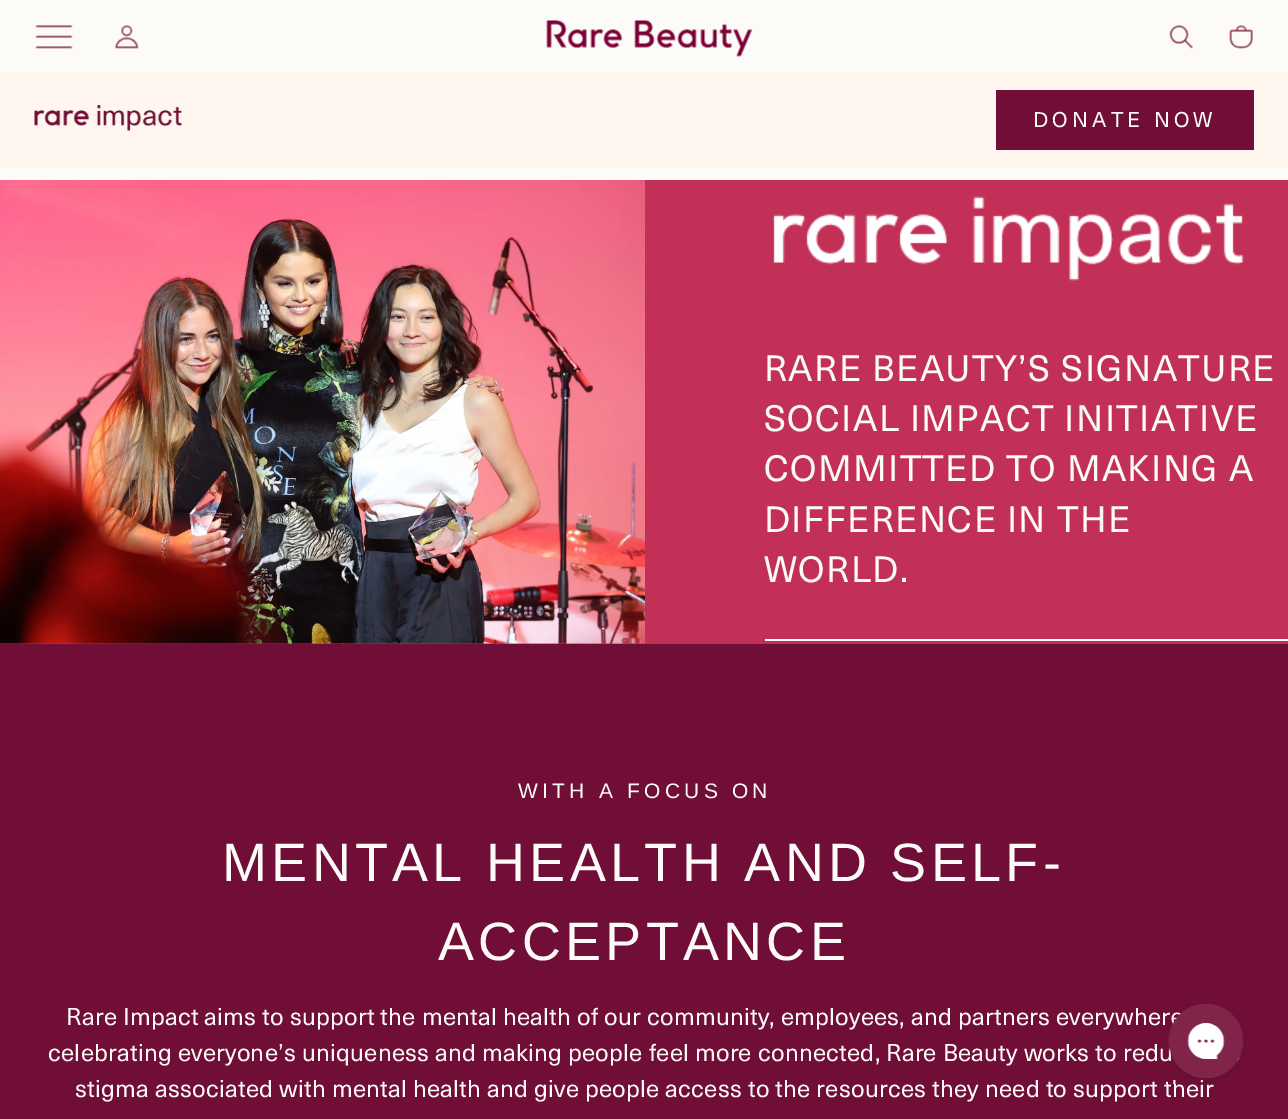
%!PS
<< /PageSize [1288 1119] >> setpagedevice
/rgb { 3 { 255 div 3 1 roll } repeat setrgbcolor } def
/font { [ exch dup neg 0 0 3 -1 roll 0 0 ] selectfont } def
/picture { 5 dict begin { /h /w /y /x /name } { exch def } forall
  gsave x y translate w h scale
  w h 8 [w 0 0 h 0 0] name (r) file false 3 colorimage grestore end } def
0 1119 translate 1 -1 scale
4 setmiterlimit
253 251 248 rgb
0 0 1288 1119 rectfill
(img/1.rgb) 35 25 38 24 picture
(img/2.rgb) 115 25 24 24 picture
(img/3.rgb) 546 20 207 37 picture
(img/4.rgb) 1169 25 24 24 picture
(img/5.rgb) 1229 25 24 24 picture
255 247 239 rgb
0 72 1288 96 rectfill
(img/6.rgb) 34 105 148 26 picture
112 14 55 rgb
996 90 258 60 rectfill
194 48 87 rgb
0 180 1288 464 rectfill
(img/7.rgb) 0 180 645 464 picture
255 255 255 rgb
765 639 523 2 rectfill
(img/8.rgb) 773 196 471 85 picture
112 14 55 rgb
0 644 1288 475 rectfill
/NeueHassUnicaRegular-Regular 21 font
253 251 248 rgb
1033 127 moveto 4.25 0 (DONATE NOW) ashow
/NeueHassUnicaRegular-Regular 36 font
764 381 moveto 1.4 0 (RARE BEAUTY’S SIGNATURE) ashow
764 431 moveto 1.4 0 (SOCIAL IMPACT INITIATIVE) ashow
764 481 moveto 1.4 0 (COMMITTED TO MAKING A) ashow
764 532 moveto 1.4 0 (DIFFERENCE IN THE) ashow
764 582 moveto 1.4 0 (WORLD.) ashow
/LiberationSans-Regular 21 font
518 798 moveto 4.25 0 (WITH A FOCUS ON) ashow
/LiberationSans-Regular 54 font
222 881 moveto 4.3 0 (MENTAL HEALTH AND SELF-) ashow
438 960 moveto 4.3 0 (ACCEPTANCE) ashow
/NeueHassUnicaRegular-Regular 24 font
66 1025 moveto 0.24 0 (Rare Impact aims to support the mental health of our community, employees, and partners everywher) ashow
48 1061 moveto 0.24 0 (celebrating everyone’s uniqueness and making people feel more connected, Rare Beauty works to redu) ashow
75 1097 moveto 0.24 0 (stigma associated with mental health and give people access to the resources they need to support their) ashow
(img/9.rgb) 1166 1004 80 80 picture
showpage
